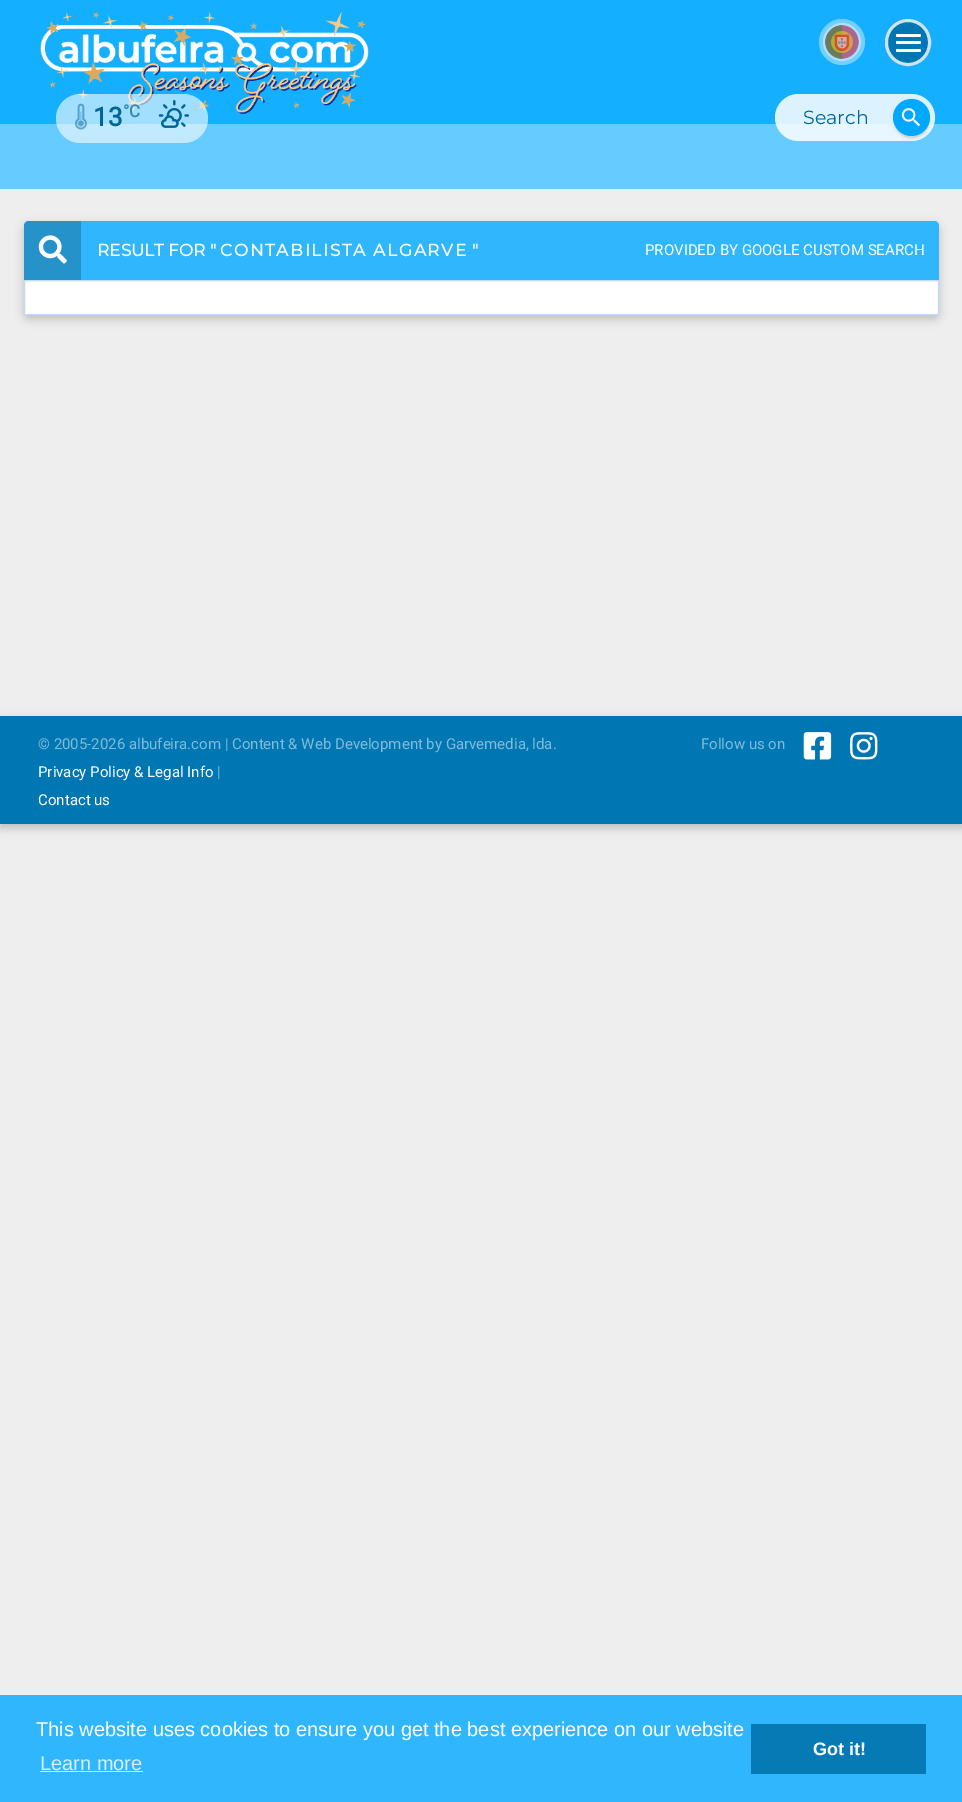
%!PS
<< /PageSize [962 1802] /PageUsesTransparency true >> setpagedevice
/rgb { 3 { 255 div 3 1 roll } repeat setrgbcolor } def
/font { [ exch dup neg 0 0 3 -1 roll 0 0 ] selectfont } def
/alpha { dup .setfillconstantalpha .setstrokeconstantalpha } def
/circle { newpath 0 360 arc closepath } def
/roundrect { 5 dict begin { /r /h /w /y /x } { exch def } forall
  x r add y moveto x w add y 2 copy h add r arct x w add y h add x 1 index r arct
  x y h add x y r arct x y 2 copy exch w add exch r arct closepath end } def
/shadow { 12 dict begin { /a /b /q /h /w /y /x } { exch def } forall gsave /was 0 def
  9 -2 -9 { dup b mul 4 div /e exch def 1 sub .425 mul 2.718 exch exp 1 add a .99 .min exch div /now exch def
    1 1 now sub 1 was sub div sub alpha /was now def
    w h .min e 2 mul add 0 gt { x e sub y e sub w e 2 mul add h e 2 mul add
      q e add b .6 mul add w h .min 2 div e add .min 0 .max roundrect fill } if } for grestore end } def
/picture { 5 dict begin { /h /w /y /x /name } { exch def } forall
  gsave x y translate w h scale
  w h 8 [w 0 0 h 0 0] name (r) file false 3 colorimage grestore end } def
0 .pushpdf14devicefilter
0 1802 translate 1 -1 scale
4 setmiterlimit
238 238 238 rgb
0 0 962 1802 rectfill
20 175 255 rgb
0 0 962 124 rectfill
0 118 179 rgb
885 19 46 47 23 roundrect fill
0.8 alpha
255 255 255 rgb
3 setlinewidth
886.5 20.5 43 44 21.5 roundrect stroke
1 alpha
896 34 25 3 1.5 roundrect fill
896 41 25 3 1.5 roundrect fill
896 49 25 3 1.5 roundrect fill
102 203 255 rgb
0 124 962 65 rectfill
(img/1.rgb) 40 12 329 102 picture
114 207 255 rgb
842 42 23 circle fill
171 226 255 rgb
842 42 17.5 circle stroke
(img/2.rgb) 825 25 34 34 picture
0.6 alpha
255 255 255 rgb
56 94 152 49 24.5 roundrect fill
1 alpha
(img/3.rgb) 75 103 12 27 picture
(img/4.rgb) 158 100 31 28 picture
0.85 alpha
775 94 160 47 23.5 roundrect fill
1 alpha
153 153 153 rgb
893 100 37 38 18.5 3 0.12 shadow
895 105 33 33 16.5 0.5 0.2 shadow
893 101 37 38 18.5 1 0.14 shadow
0 168 255 rgb
911.5 117.5 18.5 circle fill
(img/5.rgb) 901 108 19 19 picture
0 0 0 rgb
24 225 915 94 5 4.5 0.2 shadow
48 182 252 rgb
29 221 moveto 934 221 lineto 937 221 939 223 939 226 curveto 939 280 lineto 24 280 lineto 24 226 lineto 24 223 26 221 29 221 curveto closepath fill
0.2 alpha
0 0 0 rgb
29 221 moveto 81 221 lineto 81 280 lineto 24 280 lineto 24 226 lineto 24 223 26 221 29 221 curveto closepath fill
1 alpha
(img/6.rgb) 38 235 29 29 picture
255 255 255 rgb
24.5 280.5 moveto 938.5 280.5 lineto 938.5 314.5 lineto 24.5 314.5 lineto closepath gsave fill grestore
195 217 255 rgb
1 setlinewidth
stroke
0 0 0 rgb
0 720 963 108 0 4.5 0.2 shadow
0 118 179 rgb
0 716 962 108 rectfill
(img/7.rgb) 803 732 29 28 picture
(img/8.rgb) 850 732 28 28 picture
[
  [0 1695 962 107 48 182 252]
  [40 1771 103 1 214 240 254]
  [751 1724 175 50 5 122 181]
] { aload pop rgb rectfill } forall
/Roboto-Bold 26 font
0 101 153 rgb
93 126 moveto (13) show
/Roboto-Bold 17 font
51 138 182 rgb
123 117 moveto (°C) show
/Montserrat-Thin 19 font
0 101 153 rgb
803 124 moveto (Search) show
/Montserrat-Bold 16.9 font
255 255 255 rgb
97 256 moveto (RESULT FOR ") show
220 256 moveto 1.7 0 (CONTABILISTA ALGARVE) ashow
472 256 moveto (") show
/Roboto-Regular 15 font
645 255 moveto (PROVIDED BY GOOGLE CUSTOM SEARCH) show
128 187 217 rgb
38 749 moveto (© 2005-2026 albufeira.com | Content & Web Development by Garvemedia, lda.) show
255 255 255 rgb
38 777 moveto (Privacy Policy & Legal Info) show
128 187 217 rgb
217 777 moveto (|) show
255 255 255 rgb
38 805 moveto (Contact us) show
128 187 217 rgb
701 749 moveto (Follow us on) show
/LiberationSans-Regular 20 font
255 255 255 rgb
36 1736 moveto (This website uses cookies to ensure you get the best experience on our website) show
214 240 254 rgb
40 1770 moveto (Learn more) show
/LiberationSans-Bold 18 font
255 255 255 rgb
813 1755 moveto (Got it!) show
.poppdf14devicefilter showpage
